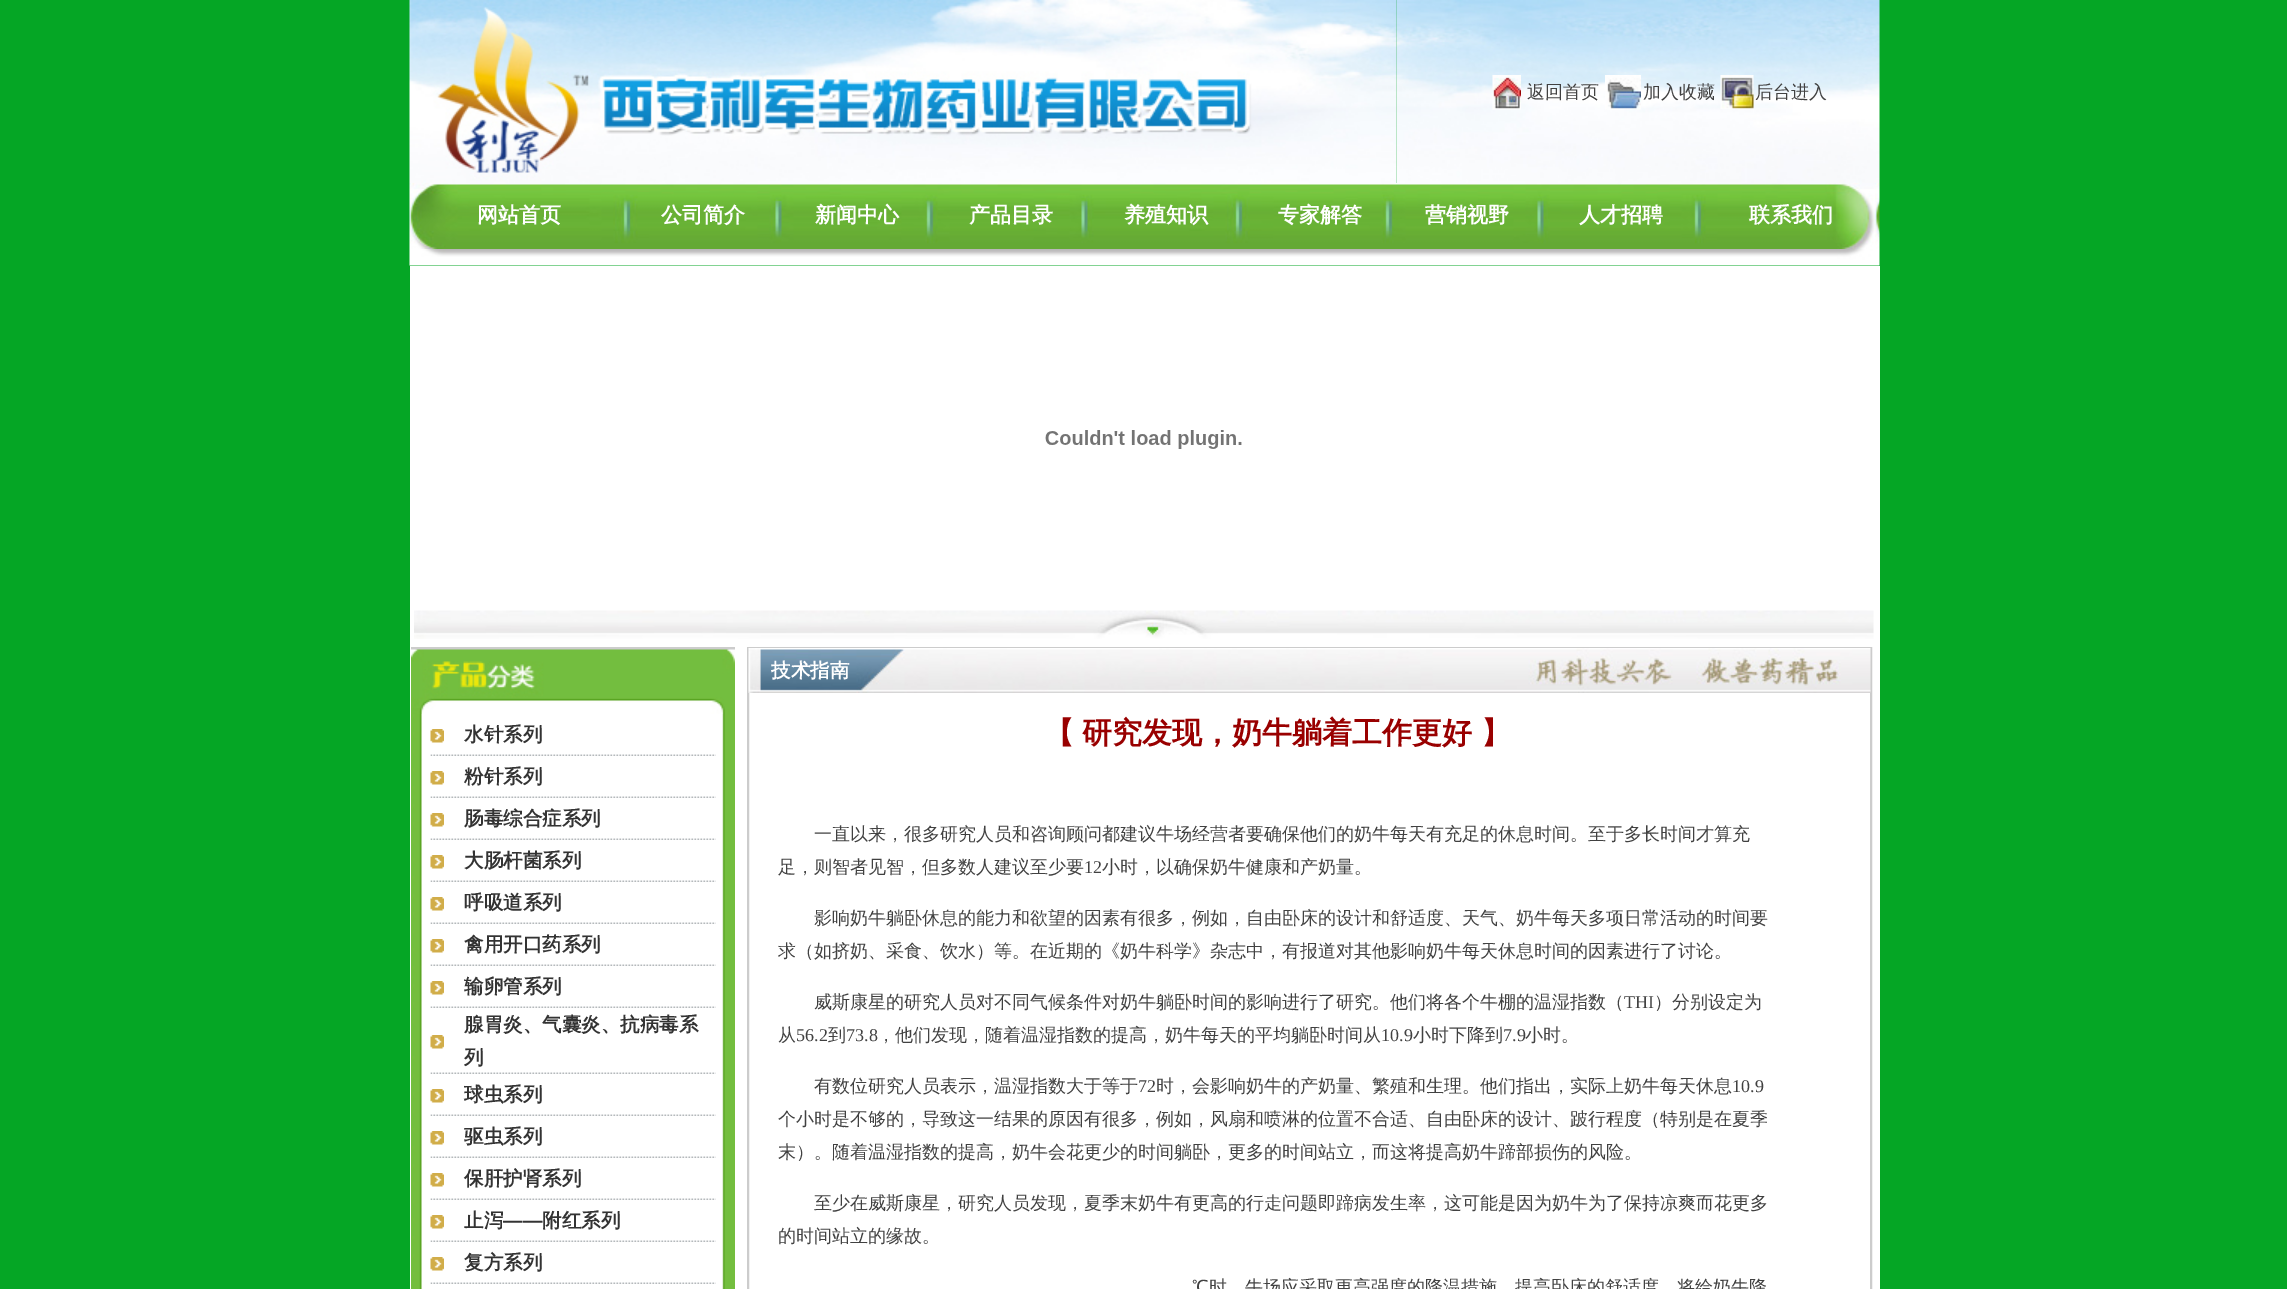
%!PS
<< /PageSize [2287 1289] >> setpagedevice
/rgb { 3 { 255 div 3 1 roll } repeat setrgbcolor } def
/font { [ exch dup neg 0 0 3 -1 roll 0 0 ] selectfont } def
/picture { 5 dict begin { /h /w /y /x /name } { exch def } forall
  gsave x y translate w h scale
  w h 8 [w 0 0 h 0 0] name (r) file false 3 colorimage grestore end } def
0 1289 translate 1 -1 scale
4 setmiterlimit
5 166 37 rgb
0 0 2287 1289 rectfill
(img/2.rgb) 1396 0 484 183 picture
(img/1.rgb) 409 0 988 183 picture
(img/3.rgb) 1492 75 29 35 picture
(img/4.rgb) 1605 75 36 35 picture
(img/5.rgb) 1720 75 34 34 picture
(img/6.rgb) 409 183 1471 66 picture
(img/7.rgb) 409 249 1471 17 picture
255 255 255 rgb
410 266 1470 381 rectfill
(img/8.rgb) 1045 430 197 19 picture
(img/9.rgb) 414 610 1460 29 picture
410 647 1 642 rectfill
204 204 204 rgb
411 647 324 3 rectfill
(img/10.rgb) 411 649 324 65 picture
(img/11.rgb) 411 714 324 575 picture
(img/12.rgb) 430 754 286 2 picture
(img/13.rgb) 430 729 14 14 picture
(img/12.rgb) 430 796 286 2 picture
(img/13.rgb) 430 771 14 14 picture
(img/12.rgb) 430 838 286 2 picture
(img/13.rgb) 430 813 14 14 picture
(img/12.rgb) 430 880 286 2 picture
(img/13.rgb) 430 855 14 14 picture
(img/12.rgb) 430 922 286 2 picture
(img/13.rgb) 430 897 14 14 picture
(img/12.rgb) 430 964 286 2 picture
(img/13.rgb) 430 939 14 14 picture
(img/12.rgb) 430 1006 286 2 picture
(img/13.rgb) 430 981 14 14 picture
(img/12.rgb) 430 1072 286 2 picture
(img/13.rgb) 430 1035 14 14 picture
(img/12.rgb) 430 1114 286 2 picture
(img/13.rgb) 430 1089 14 14 picture
(img/12.rgb) 430 1156 286 2 picture
(img/13.rgb) 430 1131 14 14 picture
(img/12.rgb) 430 1198 286 2 picture
(img/13.rgb) 430 1173 14 14 picture
(img/12.rgb) 430 1240 286 2 picture
(img/13.rgb) 430 1215 14 14 picture
(img/12.rgb) 430 1282 286 2 picture
(img/13.rgb) 430 1257 14 14 picture
255 255 255 rgb
735 647 1145 642 rectfill
204 204 204 rgb
2 setlinewidth
748 648 1123 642 rectstroke
(img/14.rgb) 748 648 1123 45 picture
/WenQuanYiZenHei-Medium 18 font
65 65 65 rgb
[
  [(返回首页) 1527 98]
  [(加入收藏) 1643 98]
  [(后台进入) 1755 98]
] { aload pop moveto show } forall
/WenQuanYiZenHei-Bold 21 font
255 255 255 rgb
[
  [(网站首页) 477 222]
  [(公司简介) 661 222]
  [(新闻中心) 815 222]
  [(产品目录) 969 222]
  [(养殖知识) 1124 222]
  [(专家解答) 1278 222]
  [(营销视野) 1425 222]
  [(人才招聘) 1579 222]
  [(联系我们) 1749 222]
] { aload pop moveto show } forall
/WenQuanYiZenHei-Bold 19.5 font
51 51 51 rgb
[
  [(水针系列) 464 741]
  [(粉针系列) 464 783]
  [(肠毒综合症系列) 464 825]
  [(大肠杆菌系列) 464 867]
  [(呼吸道系列) 464 909]
  [(禽用开口药系列) 464 951]
  [(输卵管系列) 464 993]
  [(腺胃炎、气囊炎、抗病毒系) 464 1031]
  [(列) 464 1064]
  [(球虫系列) 464 1101]
  [(驱虫系列) 464 1143]
  [(保肝护肾系列) 464 1185]
  [(止泻) 464 1227]
] { aload pop moveto show } forall
/LiberationSans-Bold 19.5 font
503 1227 moveto (——) show
/WenQuanYiZenHei-Bold 19.5 font
542 1227 moveto (附红系列) show
464 1269 moveto (复方系列) show
255 255 255 rgb
771 677 moveto (技术指南) show
/WenQuanYiZenHei-Bold 30 font
153 0 0 rgb
[
  [(【) 1044 743]
  [(研究发现，奶牛躺着工作更好) 1082 743]
  [(】) 1481 743]
] { aload pop moveto show } forall
/WenQuanYiZenHei-Medium 18 font
65 65 65 rgb
814 840 moveto (一直以来，很多研究人员和咨询顾问都建议牛场经营者要确保他们的奶牛每天有充足的休息时间。至于多长时间才算充) show
778 873 moveto (足，则智者见智，但多数人建议至少要) show
/LiberationSerif-Regular 18 font
1084 873 moveto (12) show
/WenQuanYiZenHei-Medium 18 font
[
  [(小时，以确保奶牛健康和产奶量。) 1102 873]
  [(影响奶牛躺卧休息的能力和欲望的因素有很多，例如，自由卧床的设计和舒适度、天气、奶牛每天多项日常活动的时间要) 814 924]
  [(求（如挤奶、采食、饮水）等。在近期的《奶牛科学》杂志中，有报道对其他影响奶牛每天休息时间的因素进行了讨论。) 778 957]
  [(威斯康星的研究人员对不同气候条件对奶牛躺卧时间的影响进行了研究。他们将各个牛棚的温湿指数（) 814 1008]
] { aload pop moveto show } forall
/LiberationSerif-Regular 18 font
1624 1008 moveto (THI) show
/WenQuanYiZenHei-Medium 18 font
1654 1008 moveto (）分别设定为) show
778 1041 moveto (从) show
/LiberationSerif-Regular 18 font
796 1041 moveto (56.2) show
/WenQuanYiZenHei-Medium 18 font
828 1041 moveto (到) show
/LiberationSerif-Regular 18 font
846 1041 moveto (73.8) show
/WenQuanYiZenHei-Medium 18 font
877 1041 moveto (，他们发现，随着温湿指数的提高，奶牛每天的平均躺卧时间从) show
/LiberationSerif-Regular 18 font
1381 1041 moveto (10.9) show
/WenQuanYiZenHei-Medium 18 font
1413 1041 moveto (小时下降到) show
/LiberationSerif-Regular 18 font
1503 1041 moveto (7.9) show
/WenQuanYiZenHei-Medium 18 font
1525 1041 moveto (小时。) show
814 1092 moveto (有数位研究人员表示，温湿指数大于等于) show
/LiberationSerif-Regular 18 font
1138 1092 moveto (72) show
/WenQuanYiZenHei-Medium 18 font
1156 1092 moveto (时，会影响奶牛的产奶量、繁殖和生理。他们指出，实际上奶牛每天休息) show
/LiberationSerif-Regular 18 font
1732 1092 moveto (10.9) show
/WenQuanYiZenHei-Medium 18 font
[
  [(个小时是不够的，导致这一结果的原因有很多，例如，风扇和喷淋的位置不合适、自由卧床的设计、跛行程度（特别是在夏季) 778 1125]
  [(末）。随着温湿指数的提高，奶牛会花更少的时间躺卧，更多的时间站立，而这将提高奶牛蹄部损伤的风险。) 778 1158]
  [(至少在威斯康星，研究人员发现，夏季末奶牛有更高的行走问题即蹄病发生率，这可能是因为奶牛为了保持凉爽而花更多) 814 1209]
  [(的时间站立的缘故。) 778 1242]
  [(℃时，牛场应采取更高强度的降温措施。提高卧床的舒适度，将给奶牛降) 1192 1293]
] { aload pop moveto show } forall
showpage
